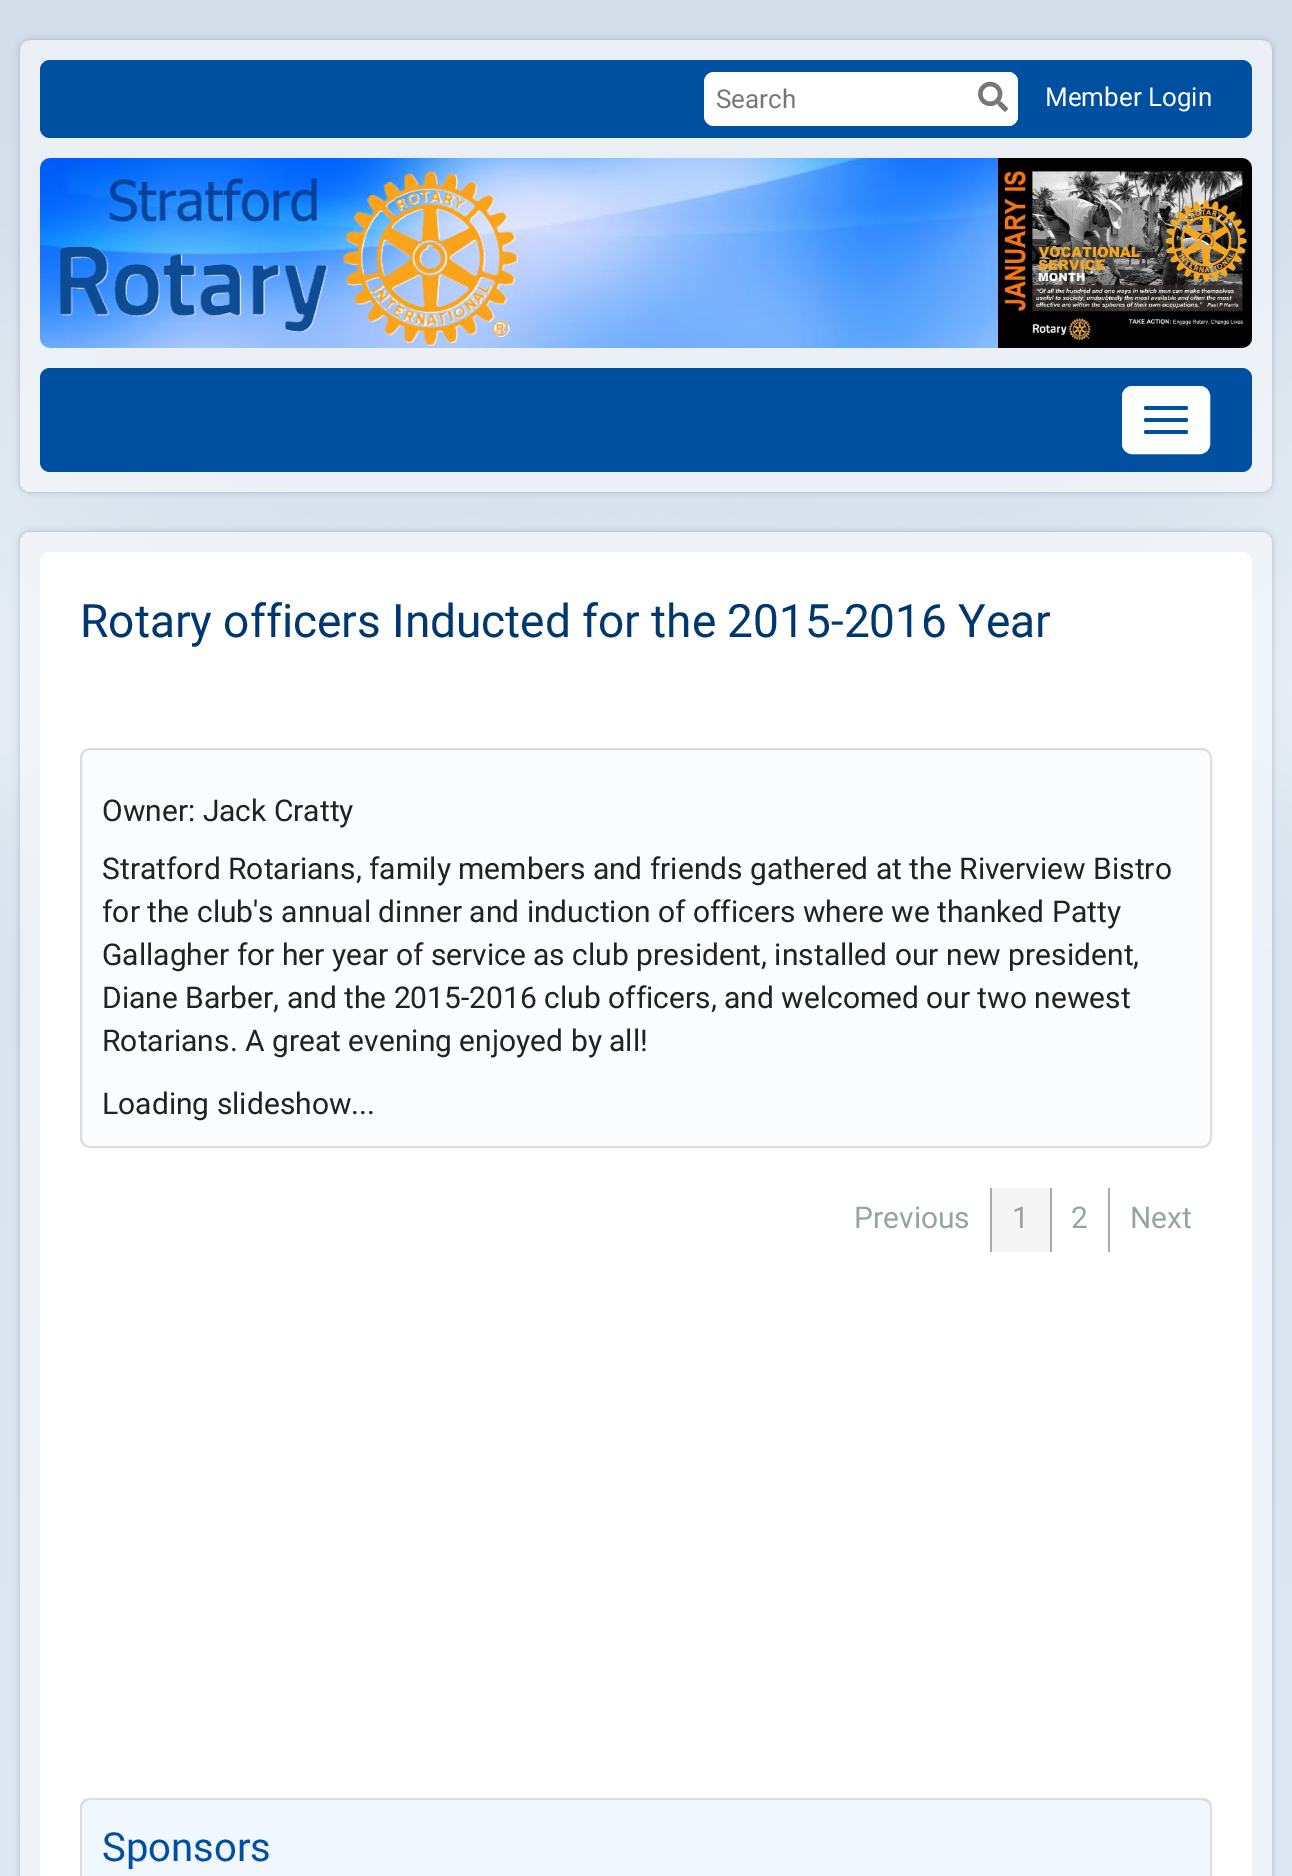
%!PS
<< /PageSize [1292 1876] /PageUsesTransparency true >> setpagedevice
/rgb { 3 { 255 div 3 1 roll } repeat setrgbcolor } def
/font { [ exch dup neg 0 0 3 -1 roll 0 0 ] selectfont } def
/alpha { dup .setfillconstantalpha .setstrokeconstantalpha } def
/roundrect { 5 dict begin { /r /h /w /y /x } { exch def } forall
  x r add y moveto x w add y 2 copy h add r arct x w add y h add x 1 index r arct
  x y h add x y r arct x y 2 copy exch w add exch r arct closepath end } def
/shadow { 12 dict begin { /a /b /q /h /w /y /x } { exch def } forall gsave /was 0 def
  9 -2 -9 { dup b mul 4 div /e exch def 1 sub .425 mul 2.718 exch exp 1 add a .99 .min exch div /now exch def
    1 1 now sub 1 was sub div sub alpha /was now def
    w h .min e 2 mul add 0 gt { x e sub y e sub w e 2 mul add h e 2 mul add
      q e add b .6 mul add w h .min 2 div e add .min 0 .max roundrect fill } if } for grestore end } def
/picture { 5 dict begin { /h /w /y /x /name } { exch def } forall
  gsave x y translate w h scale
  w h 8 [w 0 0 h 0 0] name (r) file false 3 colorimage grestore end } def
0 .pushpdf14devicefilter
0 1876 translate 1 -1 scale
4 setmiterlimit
255 255 255 rgb
0 0 1292 1876 rectfill
(img/1.rgb) 0 0 1292 1876 picture
gsave
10 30 moveto 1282 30 lineto 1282 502 lineto 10 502 lineto closepath 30 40 moveto 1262 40 lineto 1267.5 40 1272 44.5 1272 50 curveto 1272 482 lineto 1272 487.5 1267.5 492 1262 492 curveto 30 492 lineto 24.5 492 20 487.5 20 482 curveto 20 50 lineto 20 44.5 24.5 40 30 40 curveto closepath eoclip newpath
0 0 0 rgb
20 40 1252 452 10 3 0.2 shadow
grestore
0.5 alpha
20 40 1252 452 10 roundrect fill
1 alpha
0 80 162 rgb
40 60 1212 78 10 roundrect fill
255 255 255 rgb
704 72 314 54 10 roundrect fill
968 72 50 54 10 roundrect fill
(img/2.rgb) 978 81 30 31 picture
(img/3.rgb) 40 158 1212 190 picture
(img/4.rgb) 59 170 459 176 picture
(img/5.rgb) 998 158 254 190 picture
0 80 162 rgb
40 368 1212 104 10 roundrect fill
255 255 255 rgb
1123 387 86 66 9 roundrect gsave fill grestore
2 setlinewidth
stroke
0 80 162 rgb
1144 406 44 4 2 roundrect fill
1144 418 44 4 2 roundrect fill
1144 430 44 4 2 roundrect fill
gsave
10 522 moveto 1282 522 lineto 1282 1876 lineto 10 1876 lineto closepath 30 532 moveto 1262 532 lineto 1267.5 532 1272 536.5 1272 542 curveto 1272 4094 lineto 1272 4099.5 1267.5 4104 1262 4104 curveto 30 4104 lineto 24.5 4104 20 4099.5 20 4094 curveto 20 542 lineto 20 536.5 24.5 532 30 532 curveto closepath eoclip newpath
0 0 0 rgb
20 532 1252 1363 10 3 0.2 shadow
grestore
0.5 alpha
255 255 255 rgb
20 532 1252 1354 10 roundrect fill
1 alpha
40 552 1212 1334 10 roundrect fill
250 252 255 rgb
81 749 1130 398 9 roundrect gsave fill grestore
221 221 221 rgb
stroke
[
  [990 1188 2 64 170 170 170]
  [992 1188 58 64 245 245 245]
  [1050 1188 2 64 170 170 170]
  [1108 1188 2 64 170 170 170]
] { aload pop rgb rectfill } forall
240 247 255 rgb
90 1798 moveto 1202 1798 lineto 1207.5 1798 1212 1802.5 1212 1808 curveto 1212 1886 lineto 80 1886 lineto 80 1808 lineto 80 1802.5 84.5 1798 90 1798 curveto closepath fill
221 221 221 rgb
90 1798 moveto 1202 1798 lineto 1208 1798 1212 1802 1212 1808 curveto 1212 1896 lineto 80 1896 lineto 80 1808 lineto 80 1802 84 1798 90 1798 curveto closepath 90 1800 moveto 1202 1800 lineto 1206 1800 1210 1804 1210 1808 curveto 1210 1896 lineto 82 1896 lineto 82 1808 lineto 82 1804 86 1800 90 1800 curveto closepath eofill
/Roboto-Regular 26 font
119 119 119 rgb
716 108 moveto (Search) show
255 255 255 rgb
1045 106 moveto (Member Login) show
/Roboto-Regular 46 font
0 55 111 rgb
80 637 moveto (Rotary officers Inducted for the 2015-2016 Year) show
/Roboto-Regular 30 font
34 34 34 rgb
[
  [(Owner: Jack Cratty) 102 821]
  [(Stratford Rotarians, family members and friends gathered at the Riverview Bistro) 102 879]
  [(for the club's annual dinner and induction of officers where we thanked Patty) 102 922]
  [(Gallagher for her year of service as club president, installed our new president,) 102 965]
  [(Diane Barber, and the 2015-2016 club officers, and welcomed our two newest) 102 1008]
  [(Rotarians. A great evening enjoyed by all!) 102 1051]
  [(Loading slideshow...) 102 1114]
] { aload pop moveto show } forall
149 165 166 rgb
[
  [(Previous) 854 1228]
  [(1) 1012 1228]
  [(2) 1071 1228]
  [(Next) 1130 1228]
] { aload pop moveto show } forall
/Roboto-Regular 40 font
0 80 162 rgb
102 1861 moveto (Sponsors) show
.poppdf14devicefilter showpage
